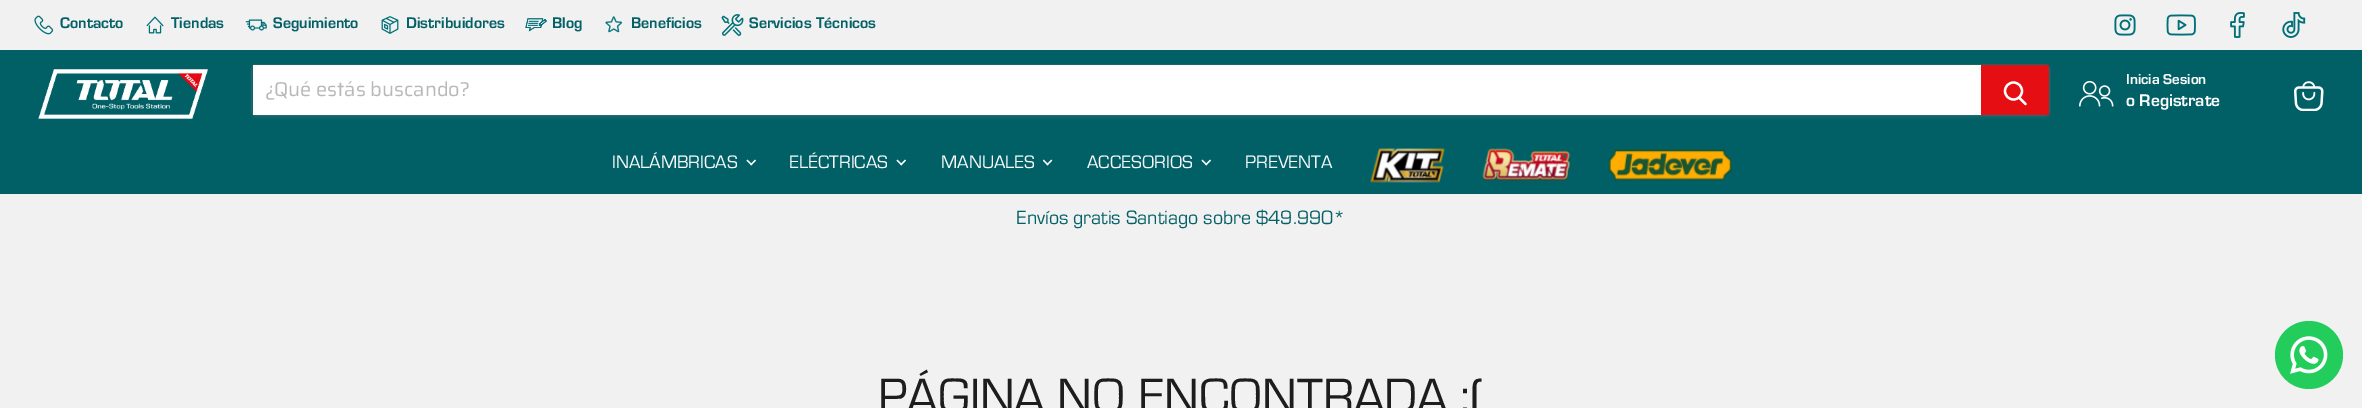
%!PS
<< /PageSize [2362 408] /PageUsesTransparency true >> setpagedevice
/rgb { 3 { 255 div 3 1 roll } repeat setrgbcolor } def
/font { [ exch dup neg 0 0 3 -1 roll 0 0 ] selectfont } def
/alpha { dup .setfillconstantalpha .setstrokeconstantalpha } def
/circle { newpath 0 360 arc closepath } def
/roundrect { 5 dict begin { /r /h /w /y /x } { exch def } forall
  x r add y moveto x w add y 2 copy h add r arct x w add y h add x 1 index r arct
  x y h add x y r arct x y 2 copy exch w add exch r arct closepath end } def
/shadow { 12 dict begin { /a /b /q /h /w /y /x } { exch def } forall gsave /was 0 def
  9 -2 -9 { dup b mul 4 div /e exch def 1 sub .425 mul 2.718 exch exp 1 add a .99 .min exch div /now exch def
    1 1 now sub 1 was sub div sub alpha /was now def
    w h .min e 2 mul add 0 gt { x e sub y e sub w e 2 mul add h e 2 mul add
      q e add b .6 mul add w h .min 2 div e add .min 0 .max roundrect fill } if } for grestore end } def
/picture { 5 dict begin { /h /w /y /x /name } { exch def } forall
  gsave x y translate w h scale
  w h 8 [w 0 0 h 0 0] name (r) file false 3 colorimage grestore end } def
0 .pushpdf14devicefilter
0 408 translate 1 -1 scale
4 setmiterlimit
241 241 241 rgb
0 0 2362 408 rectfill
(img/1.rgb) 34 15 20 20 picture
(img/2.rgb) 146 16 18 18 picture
(img/3.rgb) 245 19 22 12 picture
(img/4.rgb) 381 16 18 18 picture
(img/5.rgb) 525 18 22 14 picture
(img/6.rgb) 605 16 17 17 picture
(img/7.rgb) 721 14 23 22 picture
(img/8.rgb) 2114 14 22 22 picture
(img/9.rgb) 2166 14 30 22 picture
(img/10.rgb) 2230 12 15 26 picture
(img/11.rgb) 2282 12 24 26 picture
0 96 102 rgb
0 50 2362 144 rectfill
(img/12.rgb) 38 69 170 50 picture
128 128 128 rgb
251 66 1799 53 5 2 0.11 shadow
0.2 alpha
251.5 64.5 1798 51 4.5 roundrect stroke
1 alpha
255 255 255 rgb
253 65 1728 50 rectfill
228 14 19 rgb
1981 65 68 50 rectfill
255 255 255 rgb
2.2 setlinewidth
1 setlinecap
2025.5 104 moveto 2019.5 98 lineto stroke
0 setlinecap
2013.5 91 8.5 circle stroke
(img/13.rgb) 2079 80 35 27 picture
(img/14.rgb) 2294 81 30 30 picture
(img/15.rgb) 746 159 10 7 picture
(img/15.rgb) 896 159 10 7 picture
(img/16.rgb) 1043 159 10 7 picture
(img/15.rgb) 1201 159 10 7 picture
(img/17.rgb) 1370 148 75 35 picture
(img/18.rgb) 1482 148 89 33 picture
(img/19.rgb) 1608 149 124 32 picture
34 205 91 rgb
2309 355 34 circle fill
(img/20.rgb) 2290 336 38 38 picture
/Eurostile-Bold 16 font
3 96 102 rgb
[
  [(Contacto) 60 28]
  [(Tiendas) 171 28]
  [(Seguimiento) 273 28]
  [(Distribuidores) 406 28]
  [(Blog) 552 28]
  [(Beneficios) 631 28]
  [(Servicios Técnicos) 749 28]
] { aload pop moveto show } forall
/Saira-Regular 20 font
184 184 184 rgb
265 96 moveto (¿Qué estás buscando?) show
/Eurostile-Bold 15 font
255 255 255 rgb
2126 84 moveto (Inicia Sesion) show
/Eurostile-Bold 17.5 font
2126 106 moveto (o Registrate) show
/Eurostile-Regular 18.75 font
[
  [(INALÁMBRICAS) 612 168]
  [(ELÉCTRICAS) 789 168]
  [(MANUALES) 941 168]
  [(ACCESORIOS) 1087 168]
  [(PREVENTA) 1245 168]
] { aload pop moveto show } forall
/Eurostile-Regular 20 font
3 96 102 rgb
1016 224 moveto (Envíos gratis Santiago sobre $49.990*) show
/Eurostile-Regular 50 font
29 29 29 rgb
878 412 moveto (PÁGINA NO ENCONTRADA :\() show
.poppdf14devicefilter showpage
